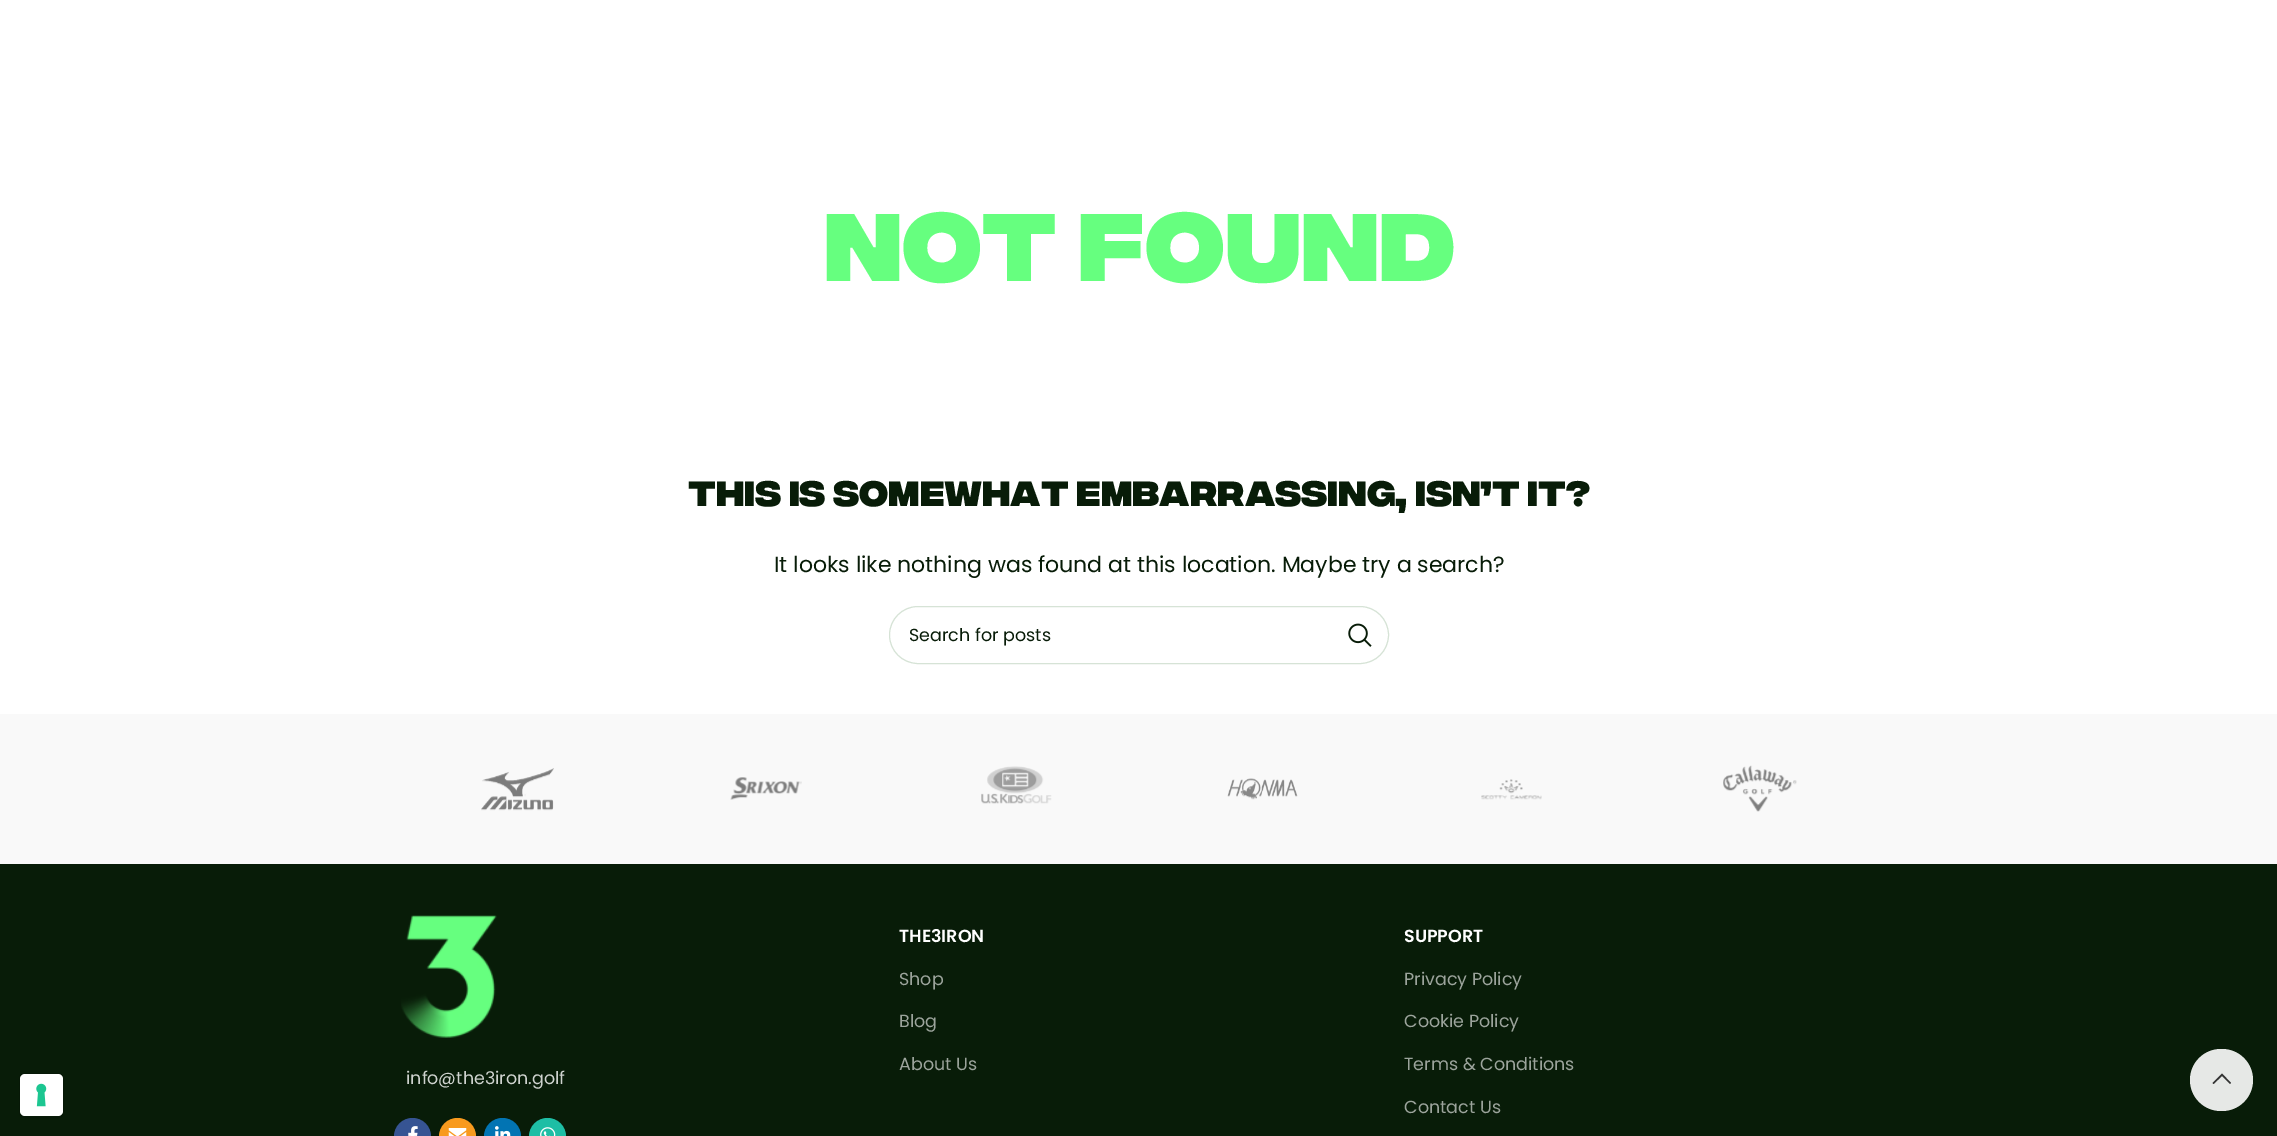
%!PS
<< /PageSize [2277 1136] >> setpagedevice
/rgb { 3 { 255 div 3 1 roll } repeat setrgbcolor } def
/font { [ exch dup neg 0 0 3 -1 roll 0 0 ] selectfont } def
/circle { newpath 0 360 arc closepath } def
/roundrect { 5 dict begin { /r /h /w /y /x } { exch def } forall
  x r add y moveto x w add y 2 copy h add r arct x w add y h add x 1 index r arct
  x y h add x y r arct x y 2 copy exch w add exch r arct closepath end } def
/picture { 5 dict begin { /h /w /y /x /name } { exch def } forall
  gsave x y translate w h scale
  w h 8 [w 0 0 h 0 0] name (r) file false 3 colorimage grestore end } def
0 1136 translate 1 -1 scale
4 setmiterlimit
255 255 255 rgb
0 0 2277 1136 rectfill
8 28 8 rgb
0 864 2277 272 rectfill
7 24 7 rgb
19.5 1073.5 44 44 5.5 roundrect stroke
255 255 255 rgb
20 1074 43 42 5 roundrect fill
(img/1.rgb) 36 1083 11 24 picture
214 227 214 rgb
889.5 606.5 499 57 28.5 roundrect stroke
(img/2.rgb) 1348 623 24 24 picture
249 249 249 rgb
0 714 2277 150 rectfill
(img/3.rgb) 481 768 73 43 picture
(img/4.rgb) 730 777 72 23 picture
(img/5.rgb) 981 766 71 38 picture
(img/6.rgb) 1227 778 71 22 picture
(img/7.rgb) 1481 779 61 21 picture
(img/8.rgb) 1723 765 74 47 picture
(img/9.rgb) 401 915 96 123 picture
54 84 147 rgb
412.5 1136.5 18.5 circle fill
(img/10.rgb) 408 1126 10 10 picture
248 154 30 rgb
457.5 1136.5 18.5 circle fill
(img/11.rgb) 448 1128 19 8 picture
2 116 179 rgb
502.5 1136.5 18.5 circle fill
(img/12.rgb) 495 1126 16 10 picture
30 190 165 rgb
547.5 1136.5 18.5 circle fill
(img/13.rgb) 540 1127 16 9 picture
230 232 230 rgb
2190 1049 63 62 31 roundrect fill
51 51 51 rgb
2230 1084 moveto 2231 1083 lineto 2222 1073.5 lineto 2212.5 1083 lineto 2213.5 1084 lineto 2222 1076 lineto closepath fill
/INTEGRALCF-ExtraBold 95.75 font
102 255 127 rgb
824 281 moveto (NOT FOUND) show
/INTEGRALCF-ExtraBold 35 font
8 28 8 rgb
688 506 moveto (This is somewhat embarrassing, isn’t it?) show
/Poppins-Regular 22 font
774 572 moveto (It looks like nothing was found at this location. Maybe try a search?) show
/Poppins-Regular 17.5 font
909 641 moveto (Search for posts) show
206 210 206 rgb
406 1084 moveto (info@the3iron.golf) show
/Poppins-SemiBold 17.5 font
255 255 255 rgb
899 942 moveto (THE3IRON) show
/Poppins-Regular 17.5 font
156 164 156 rgb
[
  [(Shop) 899 985]
  [(Blog) 899 1027]
  [(About Us) 899 1070]
] { aload pop moveto show } forall
/Poppins-SemiBold 17.5 font
255 255 255 rgb
1404 942 moveto (SUPPORT) show
/Poppins-Regular 17.5 font
156 164 156 rgb
[
  [(Privacy Policy) 1404 985]
  [(Cookie Policy) 1404 1027]
  [(Terms & Conditions) 1404 1070]
  [(Contact Us) 1404 1113]
] { aload pop moveto show } forall
showpage
